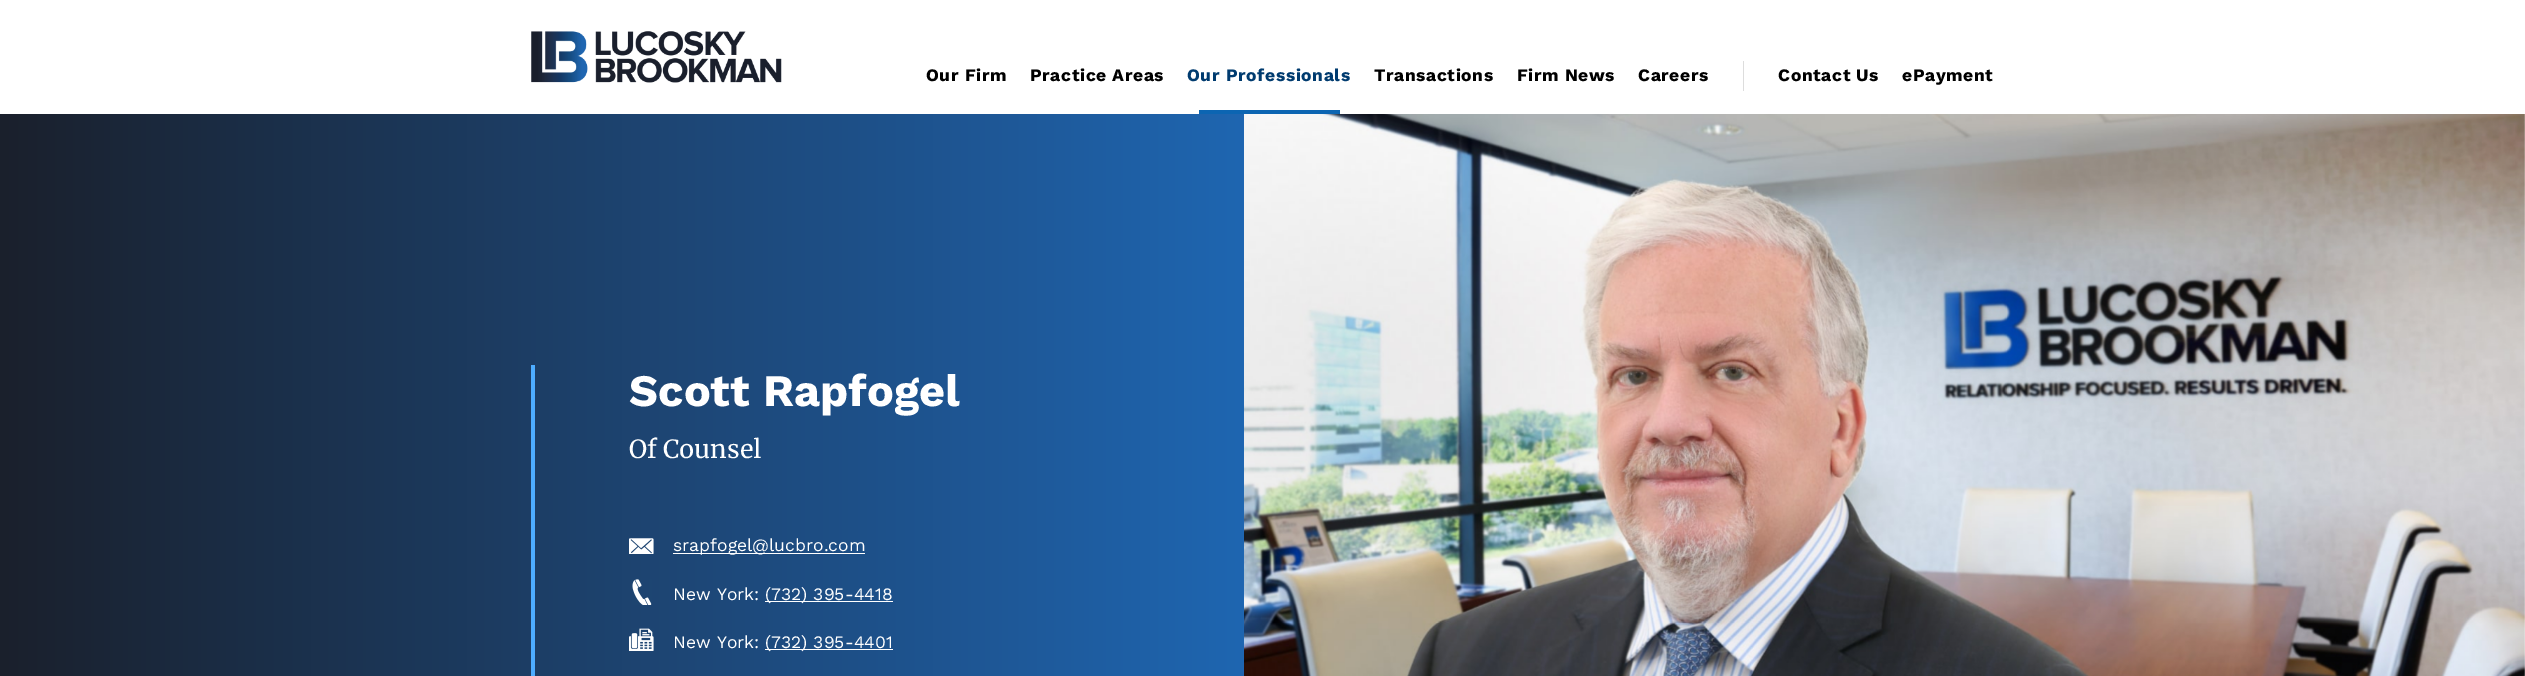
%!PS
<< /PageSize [2525 676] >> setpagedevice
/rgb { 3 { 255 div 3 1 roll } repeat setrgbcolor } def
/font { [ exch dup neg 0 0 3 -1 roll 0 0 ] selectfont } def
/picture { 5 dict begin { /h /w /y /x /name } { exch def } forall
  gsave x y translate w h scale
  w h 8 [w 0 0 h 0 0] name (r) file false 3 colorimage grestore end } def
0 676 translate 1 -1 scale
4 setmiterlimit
255 255 255 rgb
0 0 2525 676 rectfill
(img/1.rgb) 531 31 251 52 picture
12 101 178 rgb
1199 110 141 4 rectfill
221 221 221 rgb
1743 61 1 30 rectfill
gsave 0 114 moveto 1244 114 lineto 1244 676 lineto 0 676 lineto closepath clip newpath
<< /ShadingType 2 /ColorSpace /DeviceRGB /Coords [0 534 1244 534] /Extend [true true] /Function << /FunctionType 2 /Domain [0 1] /C0 [0.102 0.125 0.173] /C1 [0.122 0.4 0.694] /N 1 >> >> shfill grestore
78 173 255 rgb
531 365 4 311 rectfill
(img/2.rgb) 629 538 25 16 picture
255 255 255 rgb
673 553 192 1 rectfill
(img/3.rgb) 632 579 20 26 picture
765 601 128 1 rectfill
(img/4.rgb) 629 628 25 23 picture
765 649 128 1 rectfill
(img/5.rgb) 1244 114 1281 562 picture
/WorkSans-Bold 17.5 font
0 0 0 rgb
926 81 moveto 0.6 0 (Our Firm) ashow
1030 81 moveto 0.6 0 (Practice Areas) ashow
0 59 111 rgb
1187 81 moveto 0.6 0 (Our Professionals) ashow
0 0 0 rgb
1374 81 moveto 0.6 0 (Transactions) ashow
1517 81 moveto 0.6 0 (Firm News) ashow
1638 81 moveto 0.6 0 (Careers) ashow
1778 81 moveto 0.6 0 (Contact Us) ashow
1902 81 moveto 0.6 0 (ePayment) ashow
/WorkSans-Bold 45 font
255 255 255 rgb
629 406 moveto (Scott Rapfogel) show
/Merriweather-Regular 25 font
629 458 moveto (Of Counsel) show
/WorkSans-Regular 17.5 font
[
  [(srapfogel@lucbro.com) 673 551]
  [(New York:) 673 600]
  [(\(732\) 395-4418) 765 600]
  [(New York:) 673 648]
  [(\(732\) 395-4401) 765 648]
] { aload pop moveto show } forall
showpage
